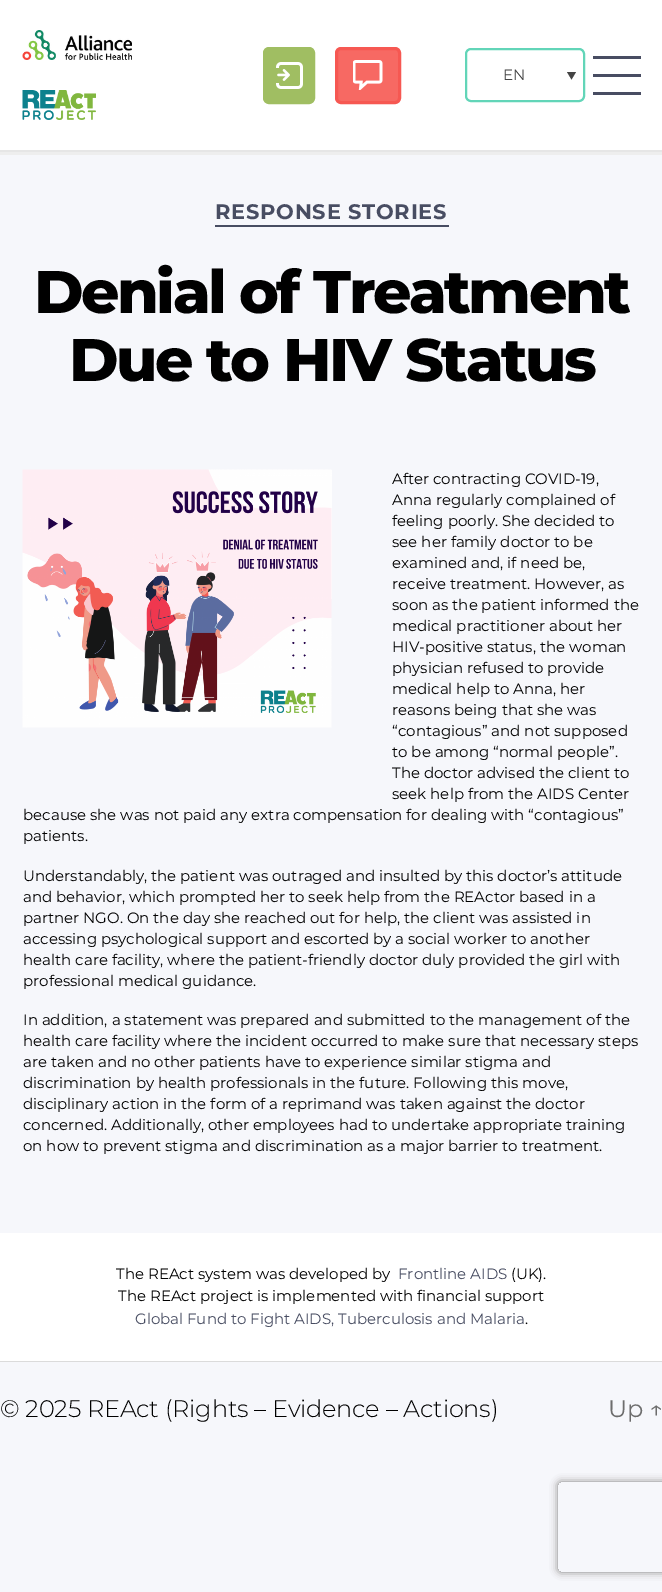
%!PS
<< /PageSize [662 1592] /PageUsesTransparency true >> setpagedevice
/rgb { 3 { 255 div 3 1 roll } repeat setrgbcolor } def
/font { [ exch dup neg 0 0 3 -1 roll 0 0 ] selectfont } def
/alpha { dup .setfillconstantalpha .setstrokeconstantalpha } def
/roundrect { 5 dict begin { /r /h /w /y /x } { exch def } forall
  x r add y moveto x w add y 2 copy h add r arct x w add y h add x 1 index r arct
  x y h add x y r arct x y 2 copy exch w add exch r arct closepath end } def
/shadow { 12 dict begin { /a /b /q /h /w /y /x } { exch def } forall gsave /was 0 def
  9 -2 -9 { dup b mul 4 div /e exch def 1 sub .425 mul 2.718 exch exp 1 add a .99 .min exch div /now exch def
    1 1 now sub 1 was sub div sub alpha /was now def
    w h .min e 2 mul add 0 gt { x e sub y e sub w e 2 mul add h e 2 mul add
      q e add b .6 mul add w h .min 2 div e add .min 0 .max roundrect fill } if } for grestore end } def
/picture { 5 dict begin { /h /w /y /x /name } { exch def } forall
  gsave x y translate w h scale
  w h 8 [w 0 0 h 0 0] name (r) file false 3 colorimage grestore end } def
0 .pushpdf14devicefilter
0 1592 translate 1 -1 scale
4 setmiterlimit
246 247 251 rgb
0 0 662 1592 rectfill
[
  [0 0 662 150 255 255 255]
  [0 152 662 3 238 238 238]
  [0 150 662 2 230 230 230]
] { aload pop rgb rectfill } forall
(img/1.rgb) 22 30 110 30 picture
(img/2.rgb) 22 90 74 30 picture
160 190 98 rgb
264.5 48.5 49 54 4.5 roundrect gsave fill grestore
3 setlinewidth
stroke
(img/3.rgb) 276 62 27 27 picture
247 105 99 rgb
336.5 48.5 63 54 4.5 roundrect gsave fill grestore
246 88 82 rgb
stroke
(img/4.rgb) 353 60 30 30 picture
98 213 184 rgb
2 setlinewidth
466 49 118 52 5 roundrect stroke
68 68 68 rgb
567 72 moveto 576 72 lineto 571.5 79.5 lineto closepath fill
[
  [593 56 48 3 72 77 98]
  [593 74 48 3 72 77 98]
  [593 92 48 3 72 77 98]
  [215 225 234 2 72 77 98]
  [331 470 1 129 255 255 255]
] { aload pop rgb rectfill } forall
(img/5.rgb) 22 469 310 259 picture
0 1233 662 128 rectfill
219 219 219 rgb
0 1361 662 1 rectfill
gsave
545 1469 moveto 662 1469 lineto 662 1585 lineto 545 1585 lineto closepath 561 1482 moveto 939 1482 lineto 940.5 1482 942 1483.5 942 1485 curveto 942 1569 lineto 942 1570.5 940.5 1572 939 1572 curveto 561 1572 lineto 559.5 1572 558 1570.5 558 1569 curveto 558 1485 lineto 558 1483.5 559.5 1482 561 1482 curveto closepath eoclip newpath
128 128 128 rgb
558 1482 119 90 3 4 1 shadow
grestore
/Montserrat-Regular 15 font
68 68 68 rgb
503 80 moveto -0.2 0 (EN) ashow
/Montserrat-Bold 21 font
72 77 98 rgb
215 219 moveto 0.75 0 (RESPONSE STORIES) ashow
/Montserrat-ExtraBold 60 font
0 0 0 rgb
34 313 moveto -2.5 0 (Denial of Treatment) ashow
69 381 moveto -2.5 0 (Due to HIV Status) ashow
/Montserrat-Regular 15 font
[
  [(After contracting COVID-19,) 392 484]
  [(Anna regularly complained of) 392 505]
  [(feeling poorly. She decided to) 392 526]
  [(see her family doctor to be) 392 547]
  [(examined and, if need be,) 392 568]
  [(receive treatment. However, as) 392 589]
  [(soon as the patient informed the) 392 610]
  [(medical practitioner about her) 392 631]
  [(HIV-positive status, the woman) 392 652]
  [(physician refused to provide) 392 673]
  [(medical help to Anna, her) 392 694]
  [(reasons being that she was) 392 715]
  [(“contagious” and not supposed) 392 736]
  [(to be among “normal people”.) 392 757]
  [(The doctor advised the client to) 392 778]
  [(seek help from the AIDS Center) 392 799]
  [(because she was not paid any extra compensation for dealing with “contagious”) 23 820]
  [(patients.) 23 841]
  [(Understandably, the patient was outraged and insulted by this doctor’s attitude) 23 881]
  [(and behavior, which prompted her to seek help from the REActor based in a) 23 902]
  [(partner NGO. On the day she reached out for help, the client was assisted in) 23 923]
  [(accessing psychological support and escorted by a social worker to another) 23 944]
  [(health care facility, where the patient-friendly doctor duly provided the girl with) 23 965]
  [(professional medical guidance.) 23 986]
  [(In addition, a statement was prepared and submitted to the management of the) 23 1025]
  [(health care facility where the incident occurred to make sure that necessary steps) 23 1046]
  [(are taken and no other patients have to experience similar stigma and) 23 1067]
  [(discrimination by health professionals in the future. Following this move,) 23 1088]
  [(disciplinary action in the form of a reprimand was taken against the doctor) 23 1109]
  [(concerned. Additionally, other employees had to undertake appropriate training) 23 1130]
  [(on how to prevent stigma and discrimination as a major barrier to treatment.) 23 1151]
  [(The REAct system was developed by) 116 1279]
] { aload pop moveto show } forall
72 77 98 rgb
398 1279 moveto (Frontline AIDS) show
0 0 0 rgb
511 1279 moveto (\(UK\).) show
118 1301 moveto (The REAct project is implemented with financial support) show
72 77 98 rgb
135 1324 moveto (Global Fund to Fight AIDS, Tuberculosis and Malaria) show
0 0 0 rgb
525 1324 moveto (.) show
/Montserrat-Light 24 font
0 1417 moveto -0.2 0 (© 2025 REAct \(Rights – Evidence – Actions\)) ashow
/Montserrat-Regular 24 font
109 109 109 rgb
608 1417 moveto -0.2 0 (Up ↑) ashow
.poppdf14devicefilter showpage
